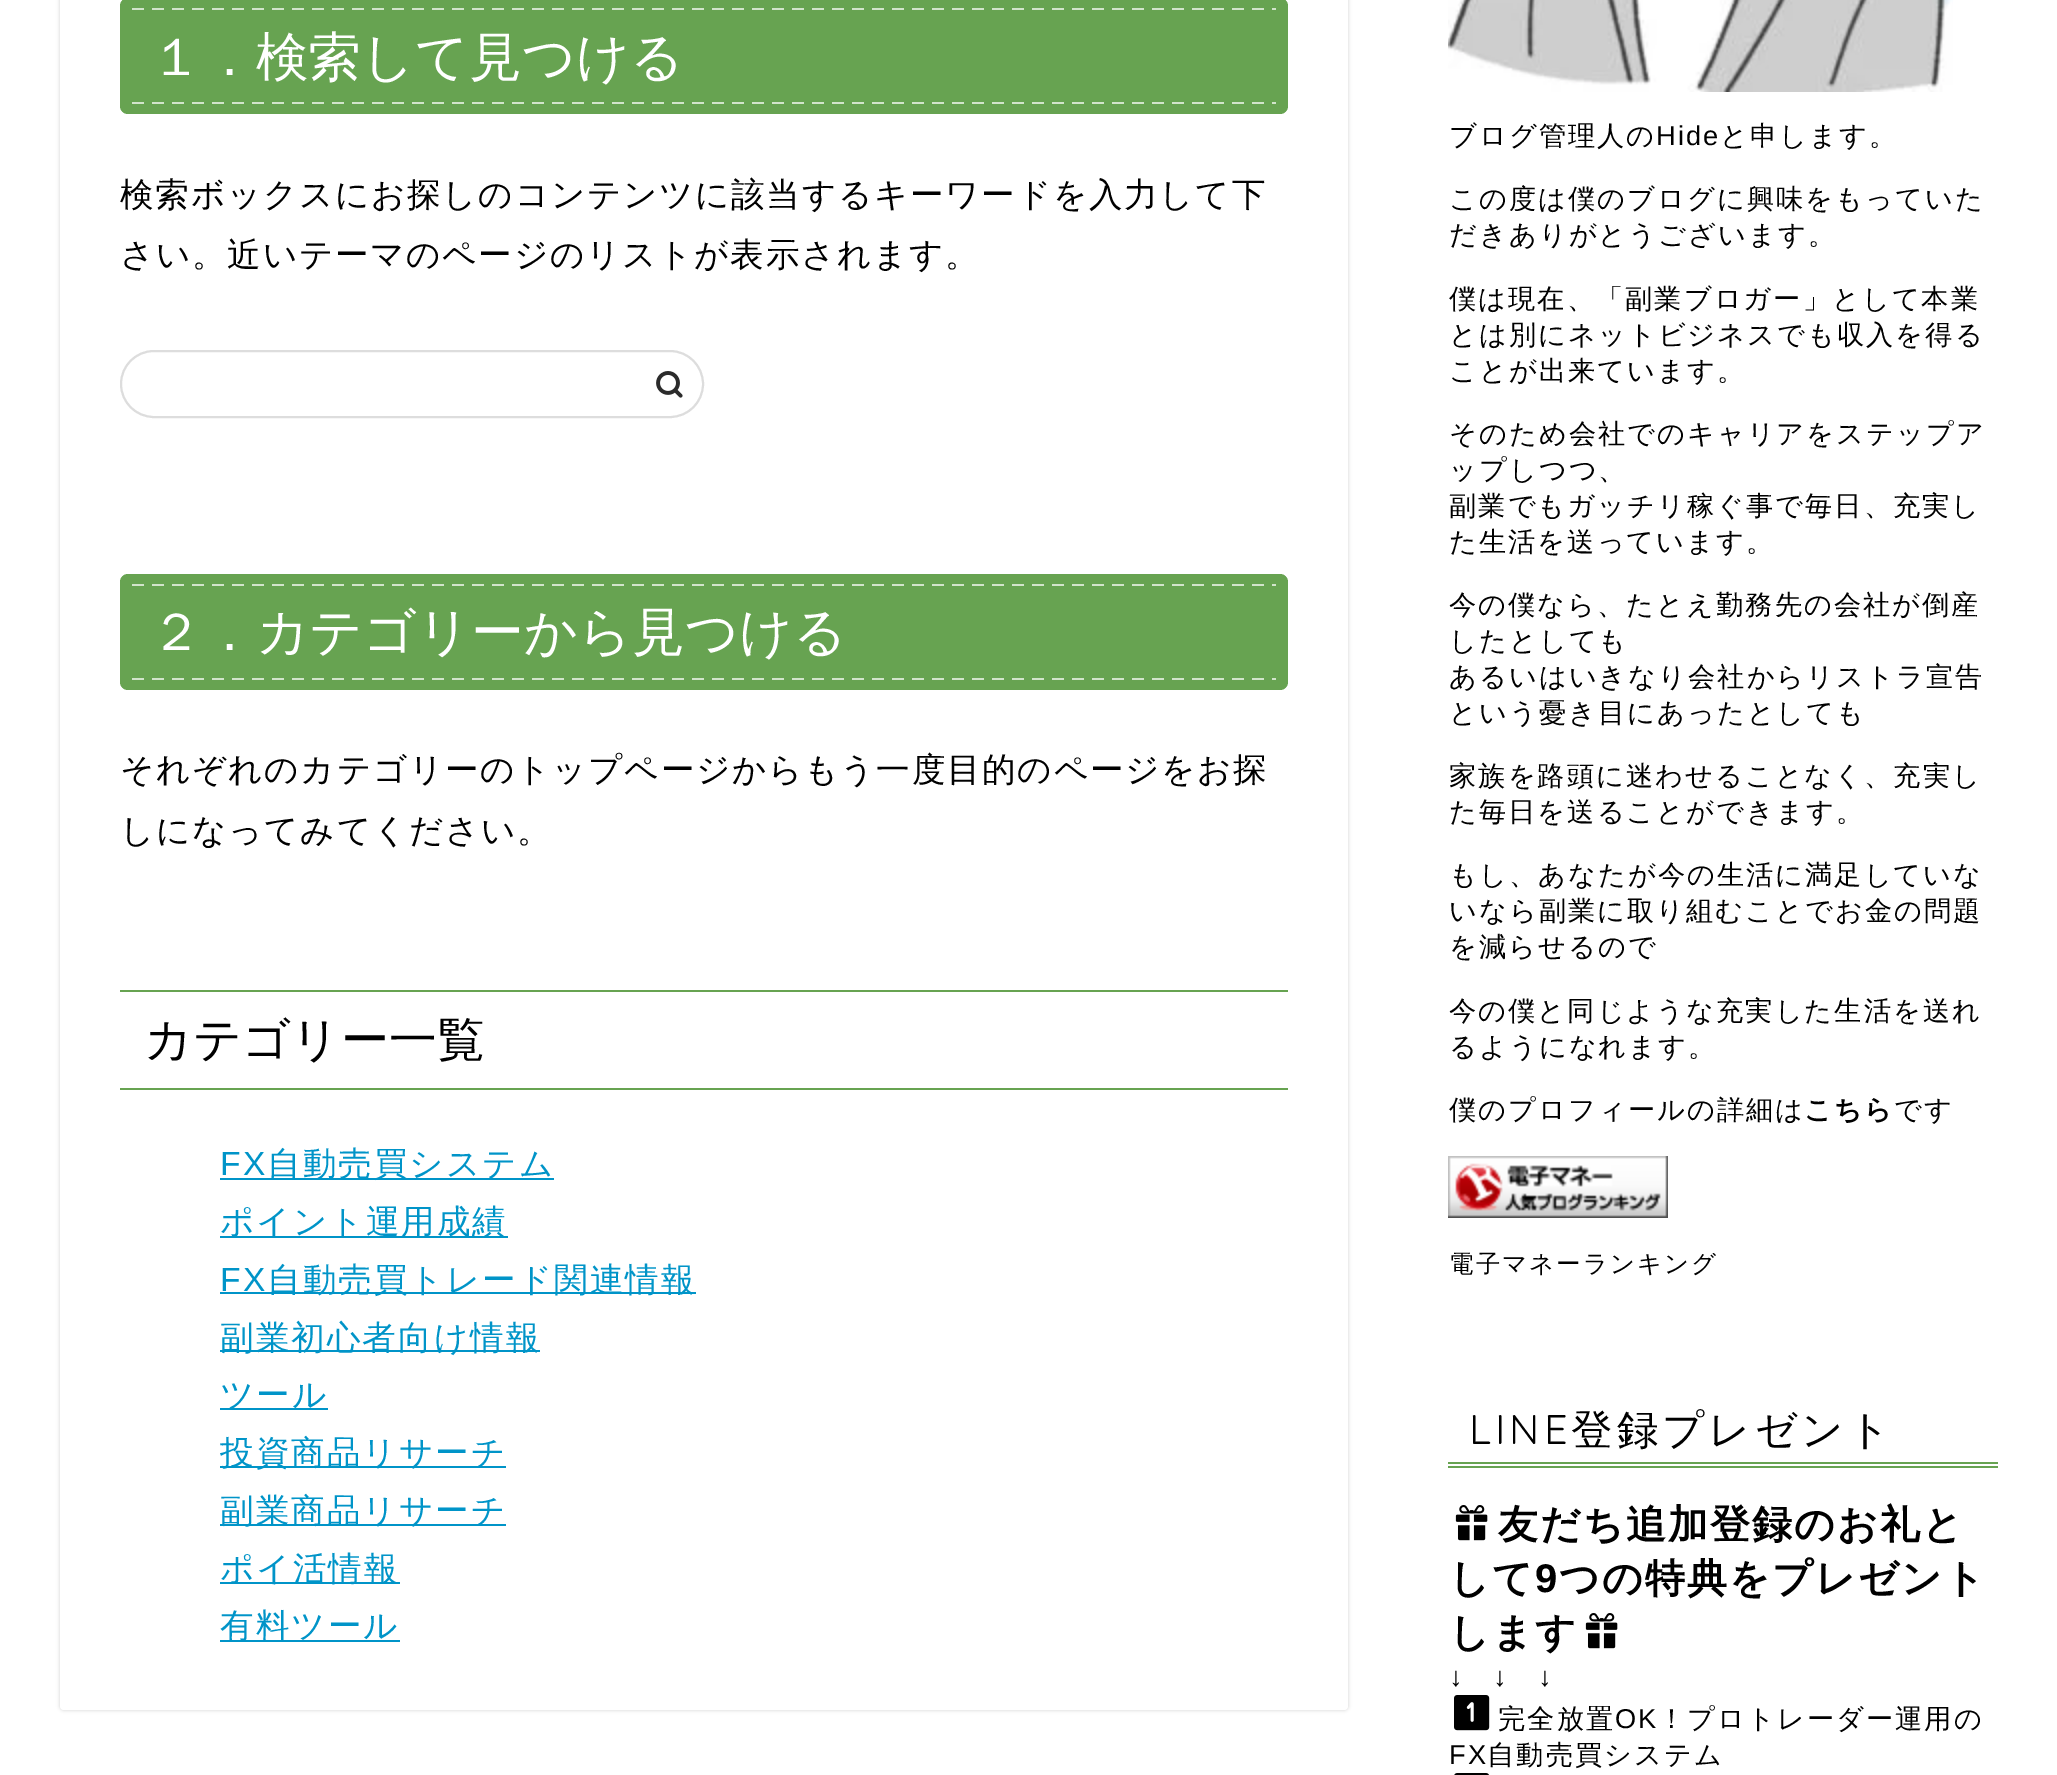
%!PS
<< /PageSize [2057 1775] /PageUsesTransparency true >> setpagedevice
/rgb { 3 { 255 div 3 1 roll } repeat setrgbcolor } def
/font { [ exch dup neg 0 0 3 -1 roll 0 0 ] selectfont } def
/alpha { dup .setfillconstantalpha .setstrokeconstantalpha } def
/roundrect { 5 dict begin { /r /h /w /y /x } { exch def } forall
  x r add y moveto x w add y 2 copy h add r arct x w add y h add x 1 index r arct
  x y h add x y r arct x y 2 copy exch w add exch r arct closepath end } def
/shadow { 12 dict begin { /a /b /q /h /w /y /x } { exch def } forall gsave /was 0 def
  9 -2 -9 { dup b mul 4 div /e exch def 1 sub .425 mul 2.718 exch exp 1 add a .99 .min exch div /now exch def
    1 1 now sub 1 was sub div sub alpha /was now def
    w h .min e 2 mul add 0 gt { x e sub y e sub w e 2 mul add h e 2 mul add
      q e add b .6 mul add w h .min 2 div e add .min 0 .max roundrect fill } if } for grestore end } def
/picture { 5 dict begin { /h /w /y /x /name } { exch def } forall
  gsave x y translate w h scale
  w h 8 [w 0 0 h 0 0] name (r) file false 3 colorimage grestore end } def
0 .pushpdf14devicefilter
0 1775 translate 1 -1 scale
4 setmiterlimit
255 255 255 rgb
0 0 2057 1775 rectfill
0 0 0 rgb
60 -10 1288 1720 4 2 0.18 shadow
255 255 255 rgb
60 -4 1288 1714 4 roundrect fill
103 163 81 rgb
120 -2 1168 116 8 roundrect fill
(img/1.rgb) 132 8 1144 2 picture
(img/1.rgb) 132 102 1144 2 picture
221 221 221 rgb
2 setlinewidth
121 351 582 66 33 roundrect stroke
(img/2.rgb) 656 371 27 27 picture
103 163 81 rgb
120 574 1168 116 8 roundrect fill
(img/1.rgb) 132 584 1144 2 picture
(img/1.rgb) 132 678 1144 2 picture
[
  [120 990 1168 2 103 163 81]
  [120 1088 1168 2 103 163 81]
  [220 1178 334 2 0 148 200]
  [220 1236 288 2 0 148 200]
  [220 1292 476 2 0 148 200]
  [220 1350 320 2 0 148 200]
  [220 1408 108 2 0 148 200]
  [220 1466 286 2 0 148 200]
  [220 1524 286 2 0 148 200]
  [220 1582 180 2 0 148 200]
  [220 1640 180 2 0 148 200]
] { aload pop rgb rectfill } forall
(img/3.rgb) 1448 0 505 92 picture
(img/4.rgb) 1448 1156 220 62 picture
103 163 81 rgb
1448 1462 550 2 rectfill
1448 1466 550 2 rectfill
(img/5.rgb) 1455 1505 33 36 picture
(img/5.rgb) 1585 1613 33 36 picture
(img/6.rgb) 1454 1695 36 36 picture
(img/7.rgb) 1454 1773 35 2 picture
/WenQuanYiZenHei-Medium 52.75 font
255 255 255 rgb
150 75 moveto (１．検索して見つける) show
/WenQuanYiZenHei-Medium 33.6 font
0 0 0 rgb
120 206 moveto 1.7 0 (検索ボックスにお探しのコンテンツに該当するキーワードを入力して下) ashow
120 266 moveto 1.7 0 (さい。近いテーマのページのリストが表示されます。) ashow
/WenQuanYiZenHei-Medium 52.75 font
255 255 255 rgb
150 650 moveto (２．カテゴリーから見つける) show
/WenQuanYiZenHei-Medium 33.6 font
0 0 0 rgb
120 781 moveto 1.7 0 (それぞれのカテゴリーのトップページからもう一度目的のページをお探) ashow
120 842 moveto 1.7 0 (しになってみてください。) ashow
/WenQuanYiZenHei-Medium 48 font
144 1056 moveto (カテゴリー一覧) show
/LiberationSans-Regular 33.6 font
0 148 200 rgb
220 1175 moveto 2 0 (FX) ashow
/WenQuanYiZenHei-Medium 33.6 font
267 1175 moveto 2 0 (自動売買システム) ashow
220 1233 moveto 2 0 (ポイント運用成績) ashow
/LiberationSans-Regular 33.6 font
220 1291 moveto 2 0 (FX) ashow
/WenQuanYiZenHei-Medium 33.6 font
267 1291 moveto 2 0 (自動売買トレード関連情報) ashow
220 1349 moveto 2 0 (副業初心者向け情報) ashow
220 1406 moveto 2 0 (ツール) ashow
220 1464 moveto 2 0 (投資商品リサーチ) ashow
220 1522 moveto 2 0 (副業商品リサーチ) ashow
220 1580 moveto 2 0 (ポイ活情報) ashow
220 1637 moveto 2 0 (有料ツール) ashow
/WenQuanYiZenHei-Medium 27.25 font
0 0 0 rgb
1449 145 moveto 2 0 (ブログ管理人の) ashow
/LiberationSans-Regular 27.25 font
1656 145 moveto 2 0 (Hide) ashow
/WenQuanYiZenHei-Medium 27.25 font
1720 145 moveto 2 0 (と申します。) ashow
1449 208 moveto 2 0 (この度は僕のブログに興味をもっていた) ashow
1449 244 moveto 2 0 (だきありがとうございます。) ashow
1449 308 moveto 2 0 (僕は現在、「副業ブロガー」として本業) ashow
1449 344 moveto 2 0 (とは別にネットビジネスでも収入を得る) ashow
1449 380 moveto 2 0 (ことが出来ています。) ashow
1449 443 moveto 2 0 (そのため会社でのキャリアをステップア) ashow
1449 479 moveto 2 0 (ップしつつ、) ashow
1449 515 moveto 2 0 (副業でもガッチリ稼ぐ事で毎日、充実し) ashow
1449 551 moveto 2 0 (た生活を送っています。) ashow
1449 614 moveto 2 0 (今の僕なら、たとえ勤務先の会社が倒産) ashow
1449 650 moveto 2 0 (したとしても) ashow
1449 686 moveto 2 0 (あるいはいきなり会社からリストラ宣告) ashow
1449 722 moveto 2 0 (という憂き目にあったとしても) ashow
1449 785 moveto 2 0 (家族を路頭に迷わせることなく、充実し) ashow
1449 821 moveto 2 0 (た毎日を送ることができます。) ashow
1449 884 moveto 2 0 (もし、あなたが今の生活に満足していな) ashow
1449 920 moveto 2 0 (いなら副業に取り組むことでお金の問題) ashow
1449 956 moveto 2 0 (を減らせるので) ashow
1449 1020 moveto 2 0 (今の僕と同じような充実した生活を送れ) ashow
1449 1056 moveto 2 0 (るようになれます。) ashow
1449 1119 moveto 2 0 (僕のプロフィールの詳細は) ashow
/WenQuanYiZenHei-Bold 27.25 font
1804 1119 moveto 2 0 (こちら) ashow
/WenQuanYiZenHei-Medium 27.25 font
1894 1119 moveto 2 0 (です) ashow
/WenQuanYiZenHei-Medium 24.5 font
1449 1272 moveto 2 0 (電子マネーランキング) ashow
/Quicksand-Light 41.5 font
1469 1444 moveto 4 0 (LINE) ashow
/WenQuanYiZenHei-Medium 41.5 font
1571 1444 moveto 4 0 (登録プレゼント) ashow
/WenQuanYiZenHei-Bold 40 font
1498 1538 moveto 2 0 (友だち追加登録のお礼と) ashow
1449 1592 moveto 2 0 (して) ashow
/LiberationSans-Bold 40 font
1535 1592 moveto 2 0 (9) ashow
/WenQuanYiZenHei-Bold 40 font
1559 1592 moveto 2 0 (つの特典をプレゼント) ashow
1449 1646 moveto 2 0 (します) ashow
/LiberationSans-Regular 27.25 font
1449 1686 moveto 2 0 (↓) ashow
1493 1686 moveto 2 0 (↓) ashow
1538 1686 moveto 2 0 (↓) ashow
/WenQuanYiZenHei-Medium 27.25 font
1498 1728 moveto 2 0 (完全放置) ashow
/LiberationSans-Regular 27.25 font
1615 1728 moveto 2 0 (OK) ashow
/WenQuanYiZenHei-Medium 27.25 font
1658 1728 moveto 2 0 (！プロトレーダー運用の) ashow
/LiberationSans-Regular 27.25 font
1449 1764 moveto 2 0 (FX) ashow
/WenQuanYiZenHei-Medium 27.25 font
1487 1764 moveto 2 0 (自動売買システム) ashow
.poppdf14devicefilter showpage
